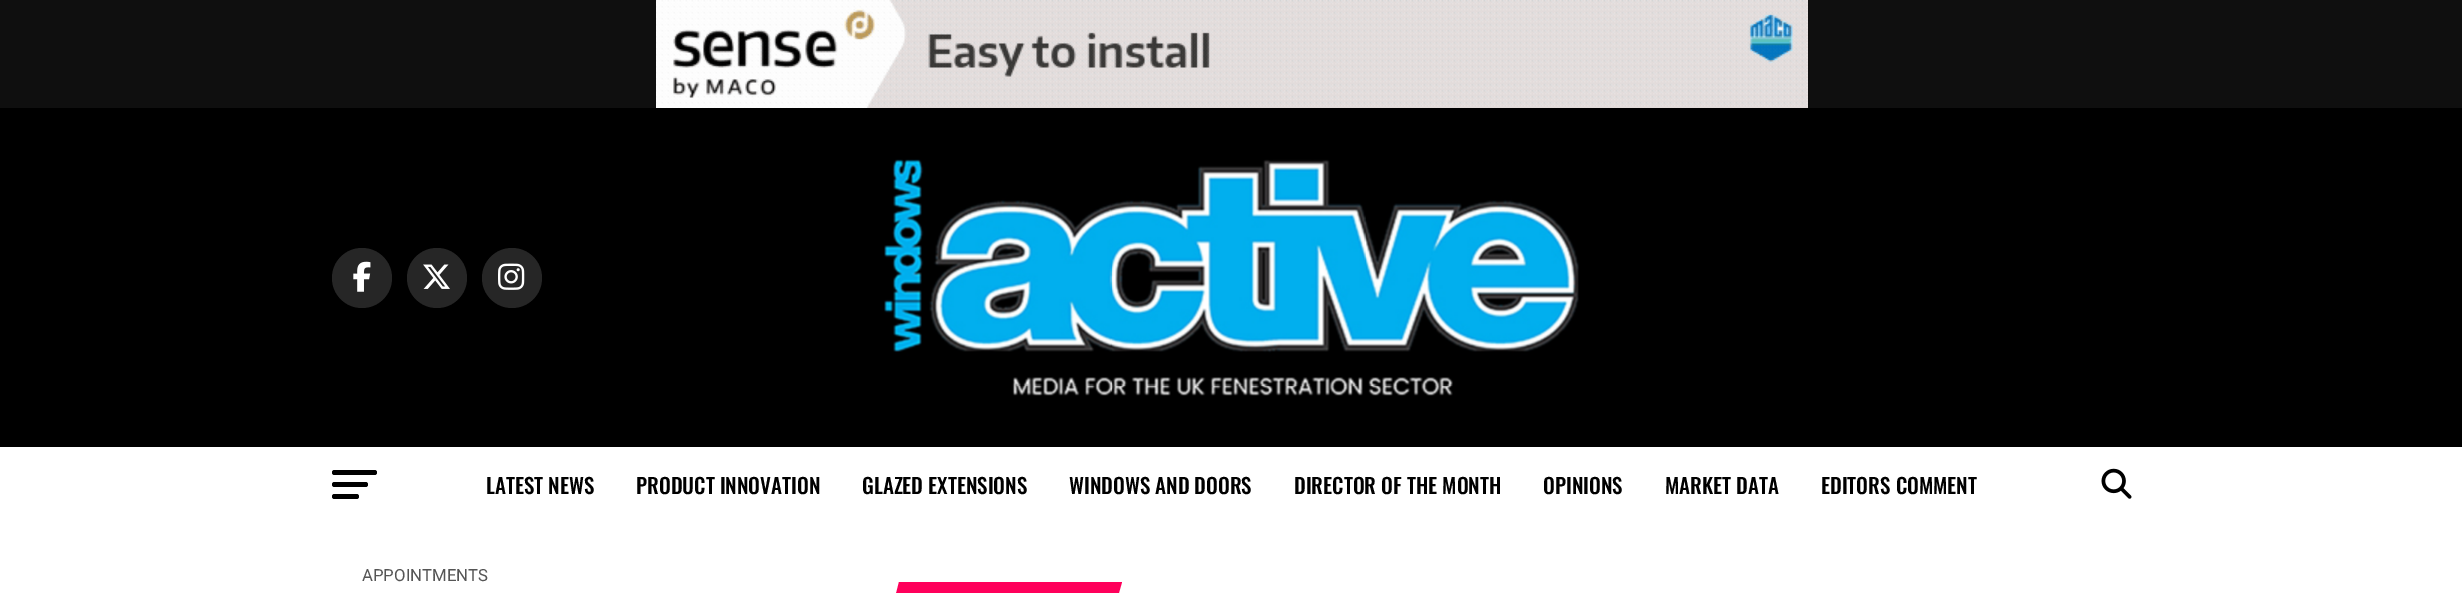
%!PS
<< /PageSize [2462 593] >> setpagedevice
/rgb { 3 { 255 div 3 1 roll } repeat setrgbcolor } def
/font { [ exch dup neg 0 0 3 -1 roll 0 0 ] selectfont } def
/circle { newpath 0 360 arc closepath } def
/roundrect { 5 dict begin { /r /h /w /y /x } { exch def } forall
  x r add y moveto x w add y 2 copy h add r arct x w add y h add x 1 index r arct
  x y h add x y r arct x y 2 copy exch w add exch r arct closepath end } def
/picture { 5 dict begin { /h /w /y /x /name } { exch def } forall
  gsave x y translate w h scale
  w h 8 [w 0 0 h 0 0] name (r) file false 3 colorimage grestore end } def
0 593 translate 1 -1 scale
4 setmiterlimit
15 15 15 rgb
0 0 2462 593 rectfill
(img/1.rgb) 656 0 1152 108 picture
0 0 0 rgb
0 108 2462 339 rectfill
38 38 38 rgb
362 278 30 circle fill
(img/2.rgb) 353 261 18 31 picture
437 278 30 circle fill
(img/3.rgb) 423 264 27 25 picture
512 278 30 circle fill
(img/4.rgb) 498 263 27 27 picture
(img/5.rgb) 884 159 695 237 picture
255 255 255 rgb
0 447 2462 146 rectfill
0 0 0 rgb
332 470 45 5 2.5 roundrect fill
332 482 36 5 2.5 roundrect fill
332 494 27 5 2.5 roundrect fill
(img/6.rgb) 2101 468 31 31 picture
255 0 91 rgb
899 582 moveto 1122 582 lineto 1111 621 lineto 889 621 lineto closepath fill
/Oswald-Medium 21 font
0 0 0 rgb
[
  [(LATEST NEWS) 486 494]
  [(PRODUCT INNOVATION) 636 494]
  [(GLAZED EXTENSIONS) 862 494]
  [(WINDOWS AND DOORS) 1069 494]
  [(DIRECTOR OF THE MONTH) 1294 494]
  [(OPINIONS) 1543 494]
  [(MARKET DATA) 1665 494]
  [(EDITORS COMMENT) 1821 494]
] { aload pop moveto show } forall
/Roboto-Regular 16.75 font
85 85 85 rgb
362 581 moveto (APPOINTMENTS) show
showpage
